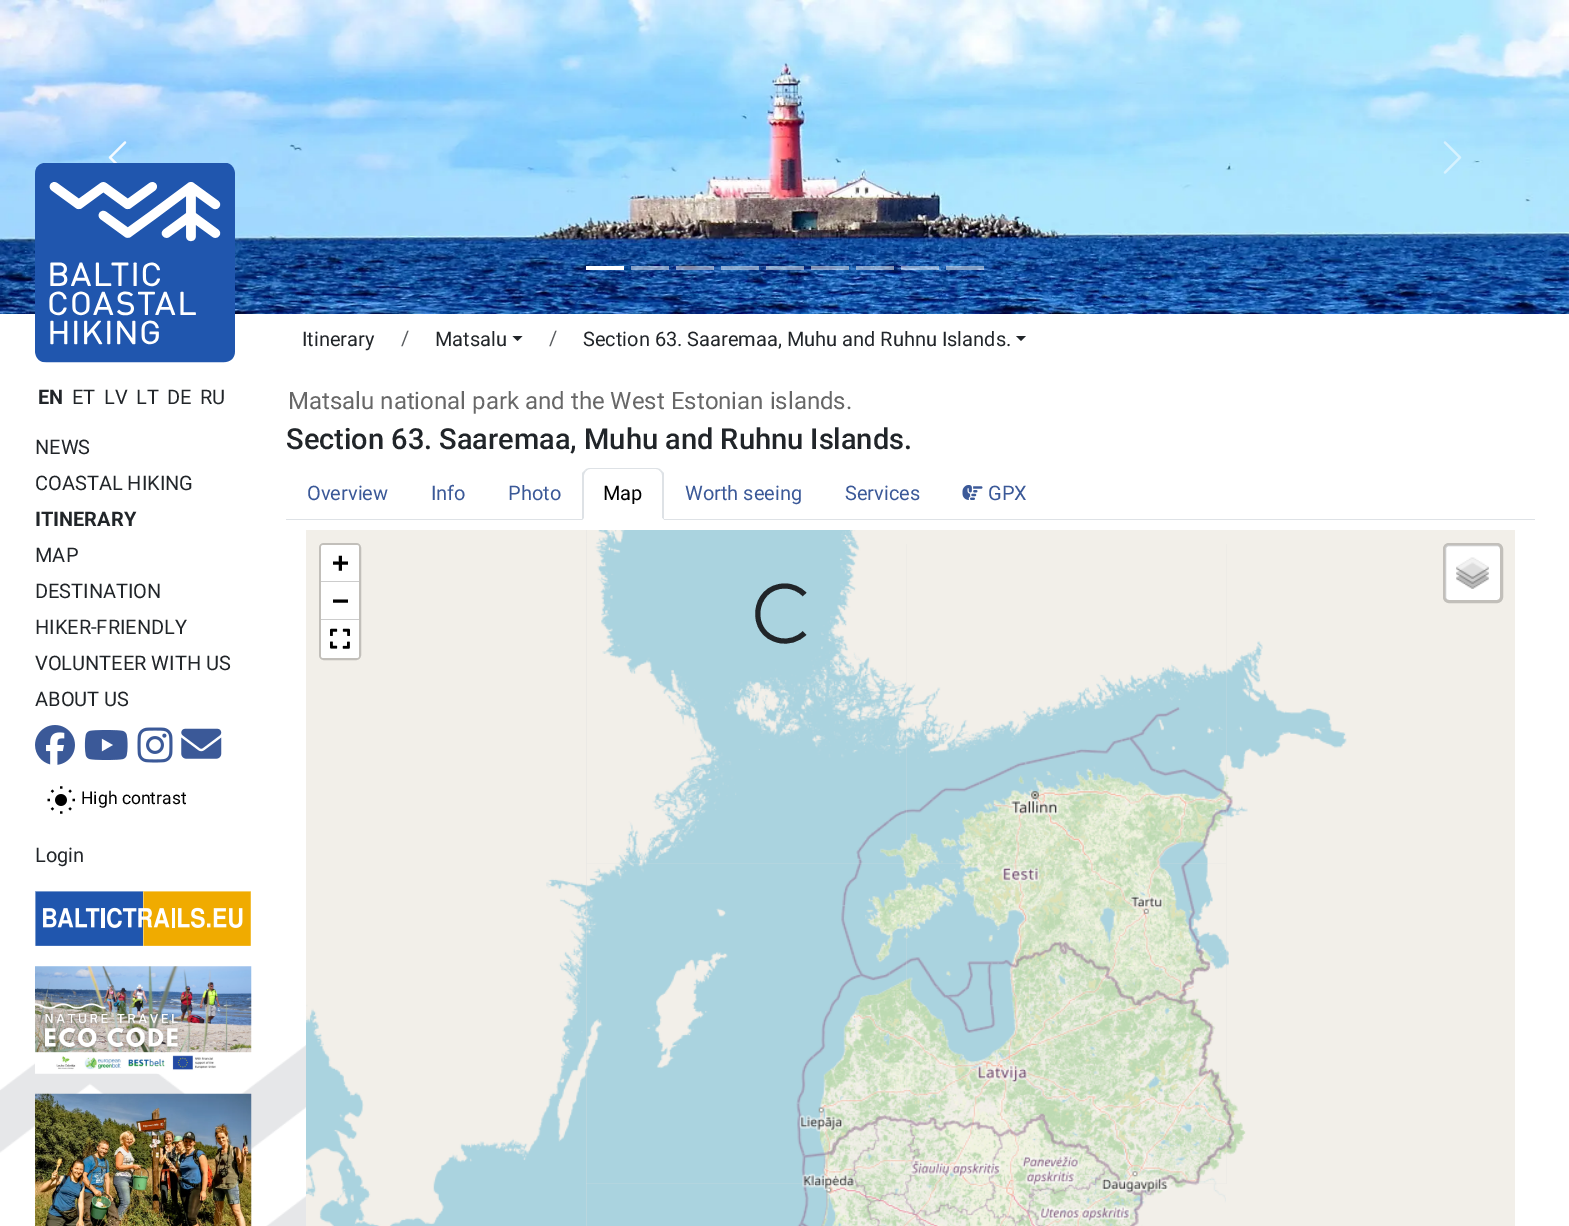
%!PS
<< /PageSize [1569 1226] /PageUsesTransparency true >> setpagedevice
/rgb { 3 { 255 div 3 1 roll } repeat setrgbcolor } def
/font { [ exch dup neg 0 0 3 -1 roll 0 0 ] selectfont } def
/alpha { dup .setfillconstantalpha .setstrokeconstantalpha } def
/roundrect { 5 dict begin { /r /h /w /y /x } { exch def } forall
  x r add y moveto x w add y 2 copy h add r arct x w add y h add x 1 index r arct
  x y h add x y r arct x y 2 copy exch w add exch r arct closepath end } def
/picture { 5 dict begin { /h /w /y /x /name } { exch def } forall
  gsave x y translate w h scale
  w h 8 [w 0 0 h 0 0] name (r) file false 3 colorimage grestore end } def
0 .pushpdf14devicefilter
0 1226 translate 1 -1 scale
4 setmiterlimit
255 255 255 rgb
0 0 1569 1226 rectfill
(img/1.rgb) 0 1044 306 182 picture
(img/2.rgb) 0 0 1569 314 picture
(img/3.rgb) 108 141 19 22 picture
(img/4.rgb) 1443 141 19 33 picture
[
  [586 266 38 4 255 255 255]
] { aload pop rgb rectfill } forall
0.5 alpha
[
  [631 266 38 4 255 255 255]
  [676 266 38 4 255 255 255]
  [721 266 38 4 255 255 255]
  [766 266 38 4 255 255 255]
  [811 266 38 4 255 255 255]
  [856 266 38 4 255 255 255]
  [901 266 38 4 255 255 255]
  [946 266 38 4 255 255 255]
] { aload pop rgb rectfill } forall
1 alpha
(img/5.rgb) 35 163 200 200 picture
(img/6.rgb) 35 725 40 40 picture
(img/7.rgb) 84 730 44 30 picture
(img/8.rgb) 137 727 36 36 picture
(img/9.rgb) 181 728 41 31 picture
(img/10.rgb) 47 786 28 28 picture
(img/11.rgb) 35 891 216 55 picture
(img/12.rgb) 35 966 217 108 picture
(img/13.rgb) 35 1093 217 133 picture
33 37 41 rgb
512.5 336 moveto 522.5 336 lineto 517.5 341 lineto closepath fill
1016 336 moveto 1026 336 lineto 1021 341 lineto closepath fill
222 226 230 rgb
286 519 1249 1 rectfill
255 255 255 rgb
591 468 moveto 656 468 lineto 660.5 468 664 471.5 664 476 curveto 664 520 lineto 583 520 lineto 583 476 lineto 583 471.5 586.5 468 591 468 curveto closepath fill
222 226 230 rgb
590 468 moveto 588 468 586 469 585 470 curveto 586 471 lineto 587 470 588 469 590 469 curveto 656 469 lineto 658 469 659 470 660 471 curveto 661 470 lineto 660 469 658 468 656 468 curveto closepath fill
661 470 moveto 664 473 lineto 664 520 lineto 662 518 lineto 662 475 lineto 662 473 661 472 660 471 curveto closepath fill
255 255 255 rgb
664 520 moveto 662 518 lineto 662 519 lineto 584 519 lineto 584 518 lineto 582 520 lineto closepath fill
222 226 230 rgb
582 520 moveto 584 518 lineto 584 475 lineto 584 474 585 472 586 471 curveto 585 470 lineto 582 473 lineto closepath fill
(img/14.rgb) 962 485 21 15 picture
221 221 221 rgb
586 530 641 696 rectfill
242 239 233 rgb
306 530 280 334 rectfill
(img/16.rgb) 586 543 321 321 picture
(img/15.rgb) 586 530 320 14 picture
906 530 609 14 rectfill
(img/17.rgb) 906 544 321 320 picture
(img/20.rgb) 586 863 321 321 picture
(img/21.rgb) 906 863 321 321 picture
(img/18.rgb) 1226 544 289 320 picture
(img/19.rgb) 306 864 280 320 picture
(img/22.rgb) 1226 864 289 320 picture
(img/23.rgb) 306 1183 280 43 picture
(img/24.rgb) 586 1183 320 43 picture
(img/25.rgb) 906 1183 320 43 picture
1226 1184 289 42 rectfill
194 191 186 rgb
3 setlinewidth
320.5 544.5 39 114 3.5 roundrect stroke
255 255 255 rgb
323.5 545 moveto 356.5 545 lineto 358 545 359 546 359 547.5 curveto 359 583 lineto 321 583 lineto 321 547.5 lineto 321 546 322 545 323.5 545 curveto closepath fill
[
  [321 581 38 1 204 204 204]
  [321 583 38 36 255 255 255]
  [321 619 38 1 204 204 204]
] { aload pop rgb rectfill } forall
255 255 255 rgb
321 620 moveto 359 620 lineto 359 655.5 lineto 359 657 358 658 356.5 658 curveto 323.5 658 lineto 322 658 321 657 321 655.5 curveto closepath fill
(img/26.rgb) 330 628 20 21 picture
1445 545 55 55 4 roundrect fill
0.2 alpha
0 0 0 rgb
1444.5 544.5 57 57 4.5 roundrect stroke
1 alpha
(img/27.rgb) 1456 557 33 32 picture
33 37 41 rgb
5 setlinewidth
804.5 633 moveto 798 639.5 788.5 642.5 779.5 640.5 curveto 747.5 634.5 752 586 785 586 curveto 792 586 799.5 589 804.5 594.5 curveto stroke
/Roboto-Bold 20 font
38 404 moveto (EN) show
/Roboto-Regular 20 font
[
  [(ET) 72 404]
  [(LV) 104 404]
  [(LT) 136 404]
  [(DE) 167 404]
  [(RU) 200 404]
  [(NEWS) 35 454]
  [(COASTAL HIKING) 35 490]
] { aload pop moveto show } forall
/Roboto-Bold 20 font
35 526 moveto (ITINERARY) show
/Roboto-Regular 20 font
[
  [(MAP) 35 562]
  [(DESTINATION) 35 598]
  [(HIKER-FRIENDLY) 35 634]
  [(VOLUNTEER WITH US) 35 670]
  [(ABOUT US) 35 706]
] { aload pop moveto show } forall
/Roboto-Regular 17.5 font
0 0 0 rgb
81 804 moveto (High contrast) show
/Roboto-Regular 20 font
33 37 41 rgb
35 862 moveto (Login) show
302 346 moveto (Itinerary) show
89 92 95 rgb
401 345 moveto (/) show
33 37 41 rgb
435 346 moveto (Matsalu) show
89 92 95 rgb
549 345 moveto (/) show
33 37 41 rgb
583 346 moveto (Section 63. Saaremaa, Muhu and Ruhnu Islands.) show
/Roboto-Regular 24 font
103 103 103 rgb
288 409 moveto (Matsalu national park and the West Estonian islands.) show
/Roboto-Medium 29 font
33 37 41 rgb
286 449 moveto (Section 63. Saaremaa, Muhu and Ruhnu Islands.) show
/Roboto-Regular 20 font
59 89 152 rgb
[
  [(Overview) 307 500]
  [(Info) 431 500]
  [(Photo) 508 500]
] { aload pop moveto show } forall
0 0 0 rgb
603 500 moveto (Map) show
59 89 152 rgb
[
  [(Worth seeing) 685 500]
  [(Services) 845 500]
  [(GPX) 988 500]
] { aload pop moveto show } forall
/DejaVuSansMono-Bold 28 font
0 0 0 rgb
332 572 moveto (+) show
332 610 moveto (−) show
.poppdf14devicefilter showpage
